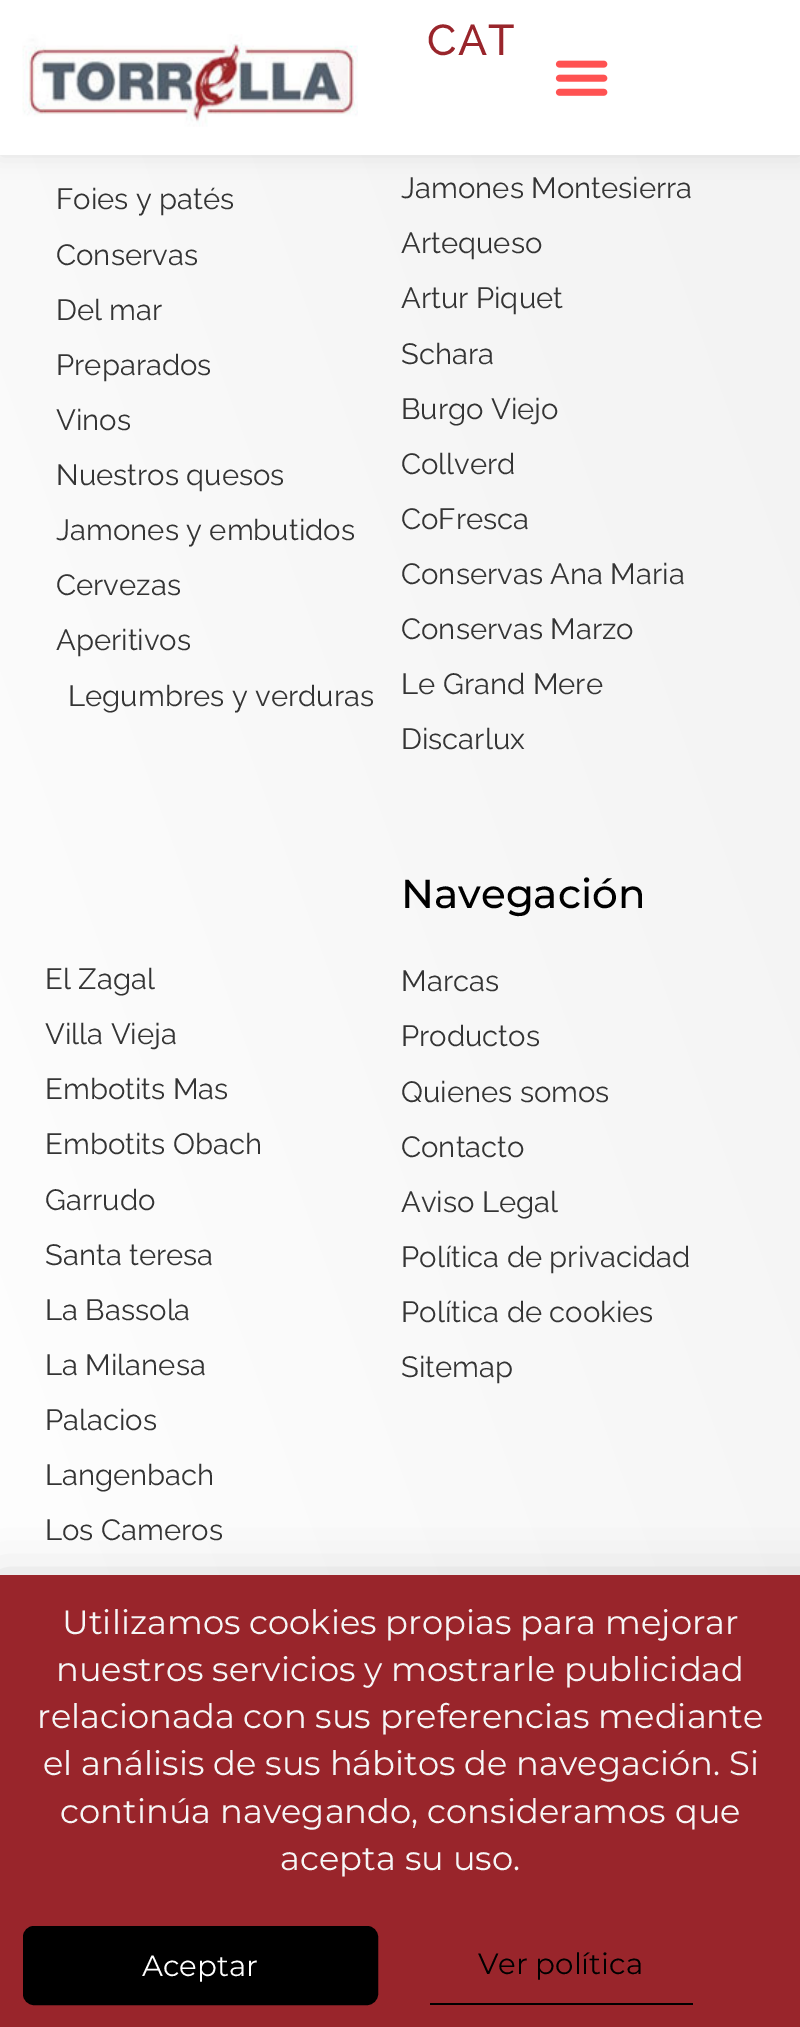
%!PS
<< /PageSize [800 2027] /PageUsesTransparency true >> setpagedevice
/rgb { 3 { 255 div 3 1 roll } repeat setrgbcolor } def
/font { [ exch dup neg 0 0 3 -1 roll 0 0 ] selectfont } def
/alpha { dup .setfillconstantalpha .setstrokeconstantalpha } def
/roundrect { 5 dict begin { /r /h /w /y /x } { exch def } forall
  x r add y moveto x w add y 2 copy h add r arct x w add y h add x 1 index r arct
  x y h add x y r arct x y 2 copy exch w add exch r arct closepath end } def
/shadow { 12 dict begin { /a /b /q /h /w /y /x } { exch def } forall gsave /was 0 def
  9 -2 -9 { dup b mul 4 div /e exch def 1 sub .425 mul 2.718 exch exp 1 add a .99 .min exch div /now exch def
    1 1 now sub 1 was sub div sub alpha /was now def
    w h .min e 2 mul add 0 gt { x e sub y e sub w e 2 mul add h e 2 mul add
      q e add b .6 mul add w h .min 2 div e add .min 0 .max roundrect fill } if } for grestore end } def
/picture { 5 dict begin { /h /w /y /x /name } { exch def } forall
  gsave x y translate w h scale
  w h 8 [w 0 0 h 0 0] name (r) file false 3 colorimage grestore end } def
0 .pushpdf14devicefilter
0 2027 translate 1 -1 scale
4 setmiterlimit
255 255 255 rgb
0 0 800 2027 rectfill
gsave 0 155 moveto 800 155 lineto 800 1575 lineto 0 1575 lineto closepath clip newpath
<< /ShadingType 2 /ColorSpace /DeviceRGB /Coords [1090 731 -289 1233] /Extend [true true] /Function << /FunctionType 2 /Domain [0 1] /C0 [0.949 0.949 0.949] /C1 [1 1 1] /N 1 >> >> shfill grestore
0 0 0 rgb
0 0 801 155 0 11 0.09 shadow
255 255 255 rgb
0 0 800 155 rectfill
(img/1.rgb) 22 34 336 93 picture
(img/2.rgb) 555 60 53 36 picture
0 0 0 rgb
-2 1586 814 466 0 26 0.2 shadow
153 37 43 rgb
0 1575 800 452 rectfill
0 0 0 rgb
24 1927 353 77 10 roundrect gsave fill grestore
2 setlinewidth
stroke
430 2003 263 2 rectfill
/Raleway-Medium 43 font
153 37 43 rgb
427 55 moveto 1.5 0 (CAT) ashow
/Raleway-Regular 29.25 font
52 52 52 rgb
[
  [(Foies y patés) 56 209]
  [(Conservas) 56 265]
  [(Del mar) 56 320]
  [(Preparados) 56 375]
  [(Vinos) 56 430]
  [(Nuestros quesos) 56 485]
  [(Jamones y embutidos) 56 540]
  [(Cervezas) 56 595]
  [(Aperitivos) 56 650]
  [(Legumbres y verduras) 68 706]
  [(Jamones Montesierra) 401 198]
  [(Artequeso) 401 253]
  [(Artur Piquet) 401 308]
  [(Schara) 401 364]
  [(Burgo Viejo) 401 419]
  [(Collverd) 401 474]
  [(CoFresca) 401 529]
  [(Conservas Ana Maria) 401 584]
  [(Conservas Marzo) 401 639]
  [(Le Grand Mere) 401 694]
  [(Discarlux) 401 749]
  [(El Zagal) 45 989]
  [(Villa Vieja) 45 1044]
  [(Embotits Mas) 45 1099]
  [(Embotits Obach) 45 1154]
  [(Garrudo) 45 1210]
  [(Santa teresa) 45 1265]
  [(La Bassola) 45 1320]
  [(La Milanesa) 45 1375]
  [(Palacios) 45 1430]
  [(Langenbach) 45 1485]
  [(Los Cameros) 45 1540]
] { aload pop moveto show } forall
/Montserrat-Medium 40.5 font
0 0 0 rgb
401 908 moveto (Navegación) show
/Raleway-Regular 29.25 font
52 52 52 rgb
[
  [(Marcas) 401 991]
  [(Productos) 401 1046]
  [(Quienes somos) 401 1102]
  [(Contacto) 401 1157]
  [(Aviso Legal) 401 1212]
  [(Política de privacidad) 401 1267]
  [(Política de cookies) 401 1322]
  [(Sitemap) 401 1377]
] { aload pop moveto show } forall
/Montserrat-Regular 33.75 font
246 246 246 rgb
[
  [(Utilizamos cookies propias para mejorar) 62 1634]
  [(nuestros servicios y mostrarle publicidad) 56 1681]
  [(relacionada con sus preferencias mediante) 37 1728]
  [(el análisis de sus hábitos de navegación. Si) 43 1775]
  [(continúa navegando, consideramos que) 60 1823]
  [(acepta su uso.) 280 1870]
] { aload pop moveto show } forall
/Montserrat-Regular 29.25 font
255 255 255 rgb
142 1976 moveto (Aceptar) show
0 0 0 rgb
478 1974 moveto (Ver política) show
.poppdf14devicefilter showpage
